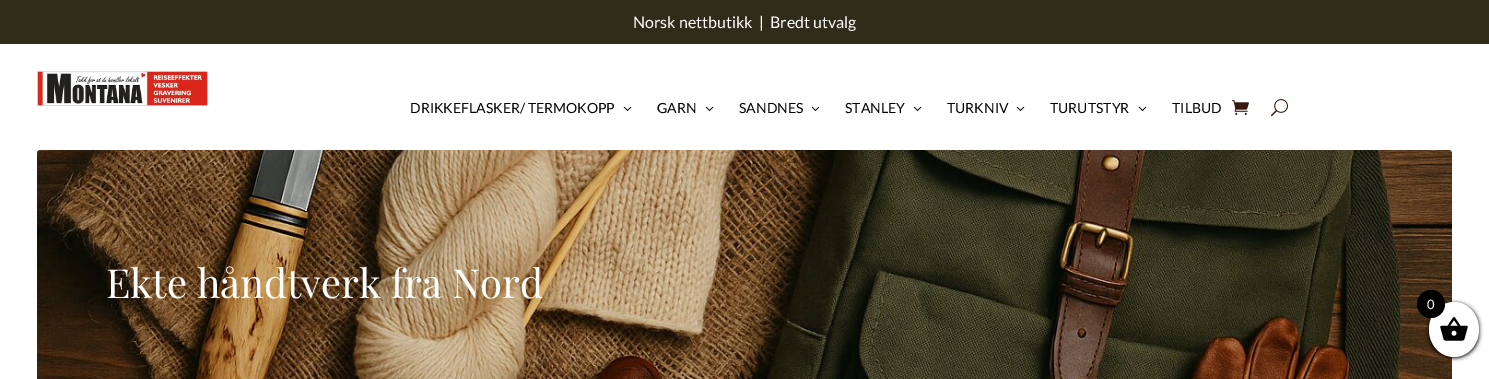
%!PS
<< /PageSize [1489 379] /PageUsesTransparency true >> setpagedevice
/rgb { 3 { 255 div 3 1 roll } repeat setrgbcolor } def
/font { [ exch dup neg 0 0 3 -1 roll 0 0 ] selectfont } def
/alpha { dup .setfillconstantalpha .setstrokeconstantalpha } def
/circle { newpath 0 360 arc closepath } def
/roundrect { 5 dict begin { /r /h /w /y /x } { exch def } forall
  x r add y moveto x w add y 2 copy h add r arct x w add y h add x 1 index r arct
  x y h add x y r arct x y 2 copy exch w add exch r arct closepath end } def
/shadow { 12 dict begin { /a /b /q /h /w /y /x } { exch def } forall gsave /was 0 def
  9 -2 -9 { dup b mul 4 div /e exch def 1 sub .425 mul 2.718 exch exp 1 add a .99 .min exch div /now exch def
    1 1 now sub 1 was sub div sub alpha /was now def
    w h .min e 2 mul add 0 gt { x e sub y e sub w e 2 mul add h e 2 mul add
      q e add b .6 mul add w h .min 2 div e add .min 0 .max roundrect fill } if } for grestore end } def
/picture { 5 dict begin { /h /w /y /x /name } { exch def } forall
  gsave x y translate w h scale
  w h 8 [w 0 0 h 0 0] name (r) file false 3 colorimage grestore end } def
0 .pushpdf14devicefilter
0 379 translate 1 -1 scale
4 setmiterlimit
255 255 255 rgb
0 0 1489 379 rectfill
47 44 25 rgb
0 0 1489 44 rectfill
(img/1.rgb) 37 71 171 35 picture
(img/2.rgb) 623 106 9 5 picture
(img/2.rgb) 705 106 9 5 picture
(img/2.rgb) 811 106 9 5 picture
(img/2.rgb) 913 106 9 5 picture
(img/2.rgb) 1016 106 9 5 picture
(img/2.rgb) 1138 106 9 5 picture
(img/3.rgb) 1232 100 17 15 picture
(img/4.rgb) 1271 99 17 18 picture
(img/5.rgb) 37 150 1415 229 picture
0 0 0 rgb
1429 303 50 55 25 2 1 shadow
255 255 255 rgb
1454 302 moveto 1468 302 1479 314.5 1479 329.5 curveto 1479 344.5 1468 357 1454 357 curveto 1440 357 1429 344.5 1429 329.5 curveto 1429 314.5 1440 302 1454 302 curveto closepath fill
0 0 0 rgb
1431 304 14 circle fill
(img/6.rgb) 1440 317 28 24 picture
/Lato-Regular 16 font
255 255 255 rgb
633 28 moveto (Norsk nettbutikk  |  Bredt utvalg) show
/Lato-Regular 14 font
0 0 0 rgb
[
  [(DRIKKEFLASKER/ TERMOKOPP) 410 113]
  [(GARN) 657 113]
  [(SANDNES) 739 113]
  [(STANLEY) 845 113]
  [(TURKNIV) 947 113]
  [(TURUTSTYR) 1050 113]
  [(TILBUD) 1172 113]
] { aload pop moveto show } forall
/PlayfairDisplay-Regular 40 font
255 255 255 rgb
106 298 moveto (Ekte håndtverk fra Nord) show
/Lato-Regular 13 font
1427 309 moveto (0) show
.poppdf14devicefilter showpage
